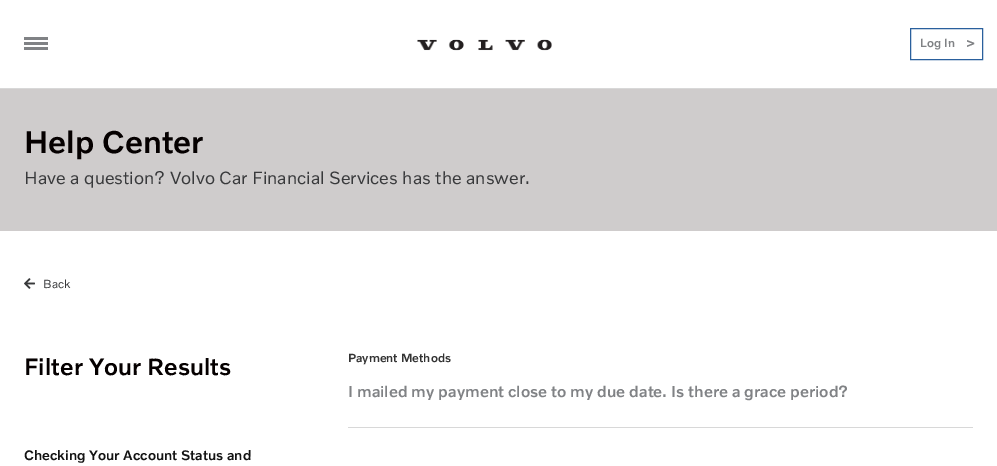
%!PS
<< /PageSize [997 466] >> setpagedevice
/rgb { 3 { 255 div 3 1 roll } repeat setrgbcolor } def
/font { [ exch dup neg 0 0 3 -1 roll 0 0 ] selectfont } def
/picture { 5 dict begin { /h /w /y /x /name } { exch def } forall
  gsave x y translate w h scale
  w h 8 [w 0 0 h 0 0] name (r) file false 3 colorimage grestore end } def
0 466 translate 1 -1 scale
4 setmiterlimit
255 255 255 rgb
0 0 997 466 rectfill
[
  [0 88 997 1 216 216 216]
  [24 42 24 3 128 130 133]
  [24 37 24 3 128 130 133]
  [24 47 24 3 128 130 133]
] { aload pop rgb rectfill } forall
(img/1.rgb) 417 39 135 12 picture
42 96 157 rgb
910.5 28.5 72 31 rectstroke
207 204 204 rgb
0 89 997 142 rectfill
(img/2.rgb) 24 278 11 11 picture
216 216 216 rgb
348 427 625 1 rectfill
/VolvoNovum-Medium 12 font
128 130 133 rgb
920 47 moveto (Log In) show
/VolvoNovum-Medium 14 font
966 48 moveto -3 0 (>) ashow
/VolvoNovum-Medium 32 font
5 0 0 rgb
24 153 moveto (Help Center) show
/VolvoNovum-Regular 18 font
56 57 59 rgb
24 184 moveto (Have a question? Volvo Car Financial Services has the answer.) show
/VolvoNovum-Regular 12 font
43 288 moveto (Back) show
/VolvoNovum-Medium 24 font
5 0 0 rgb
24 375 moveto (Filter Your Results) show
/VolvoNovum-Medium 14 font
20 20 20 rgb
24 460 moveto (Checking Your Account Status and) show
/VolvoNovum-Medium 12 font
51 51 51 rgb
348 362 moveto (Payment Methods) show
/VolvoNovum-Medium 16 font
128 130 133 rgb
348 397 moveto (I mailed my payment close to my due date. Is there a grace period?) show
showpage
